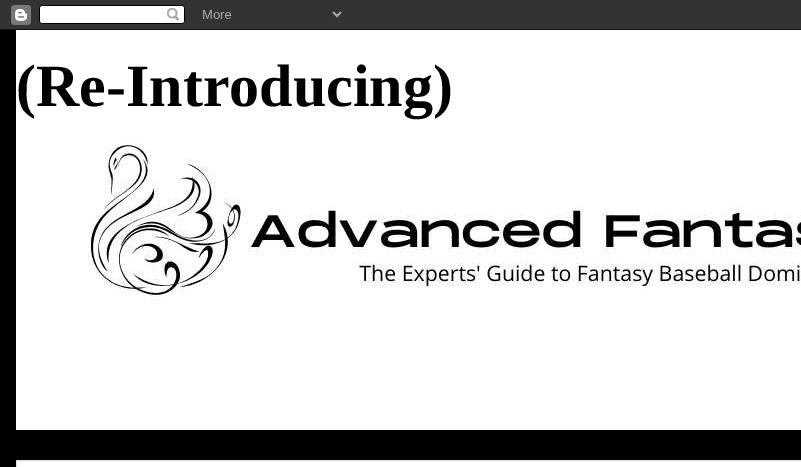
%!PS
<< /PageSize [801 467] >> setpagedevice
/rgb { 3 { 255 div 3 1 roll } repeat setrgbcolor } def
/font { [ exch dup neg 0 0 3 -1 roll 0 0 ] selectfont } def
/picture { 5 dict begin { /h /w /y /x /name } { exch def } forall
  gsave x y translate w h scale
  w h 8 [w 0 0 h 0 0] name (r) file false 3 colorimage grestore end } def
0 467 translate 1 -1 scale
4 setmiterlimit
0 0 0 rgb
0 0 801 467 rectfill
(img/1.rgb) 0 0 801 30 picture
(img/2.rgb) 16 30 785 400 picture
255 255 255 rgb
16.5 460.5 moveto 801.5 460.5 lineto 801.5 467.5 lineto 16.5 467.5 lineto closepath gsave fill grestore
226 226 226 rgb
stroke
/LiberationSerif-Bold 60 font
0 0 0 rgb
16 106 moveto (\(Re-Introducing\)) show
showpage
